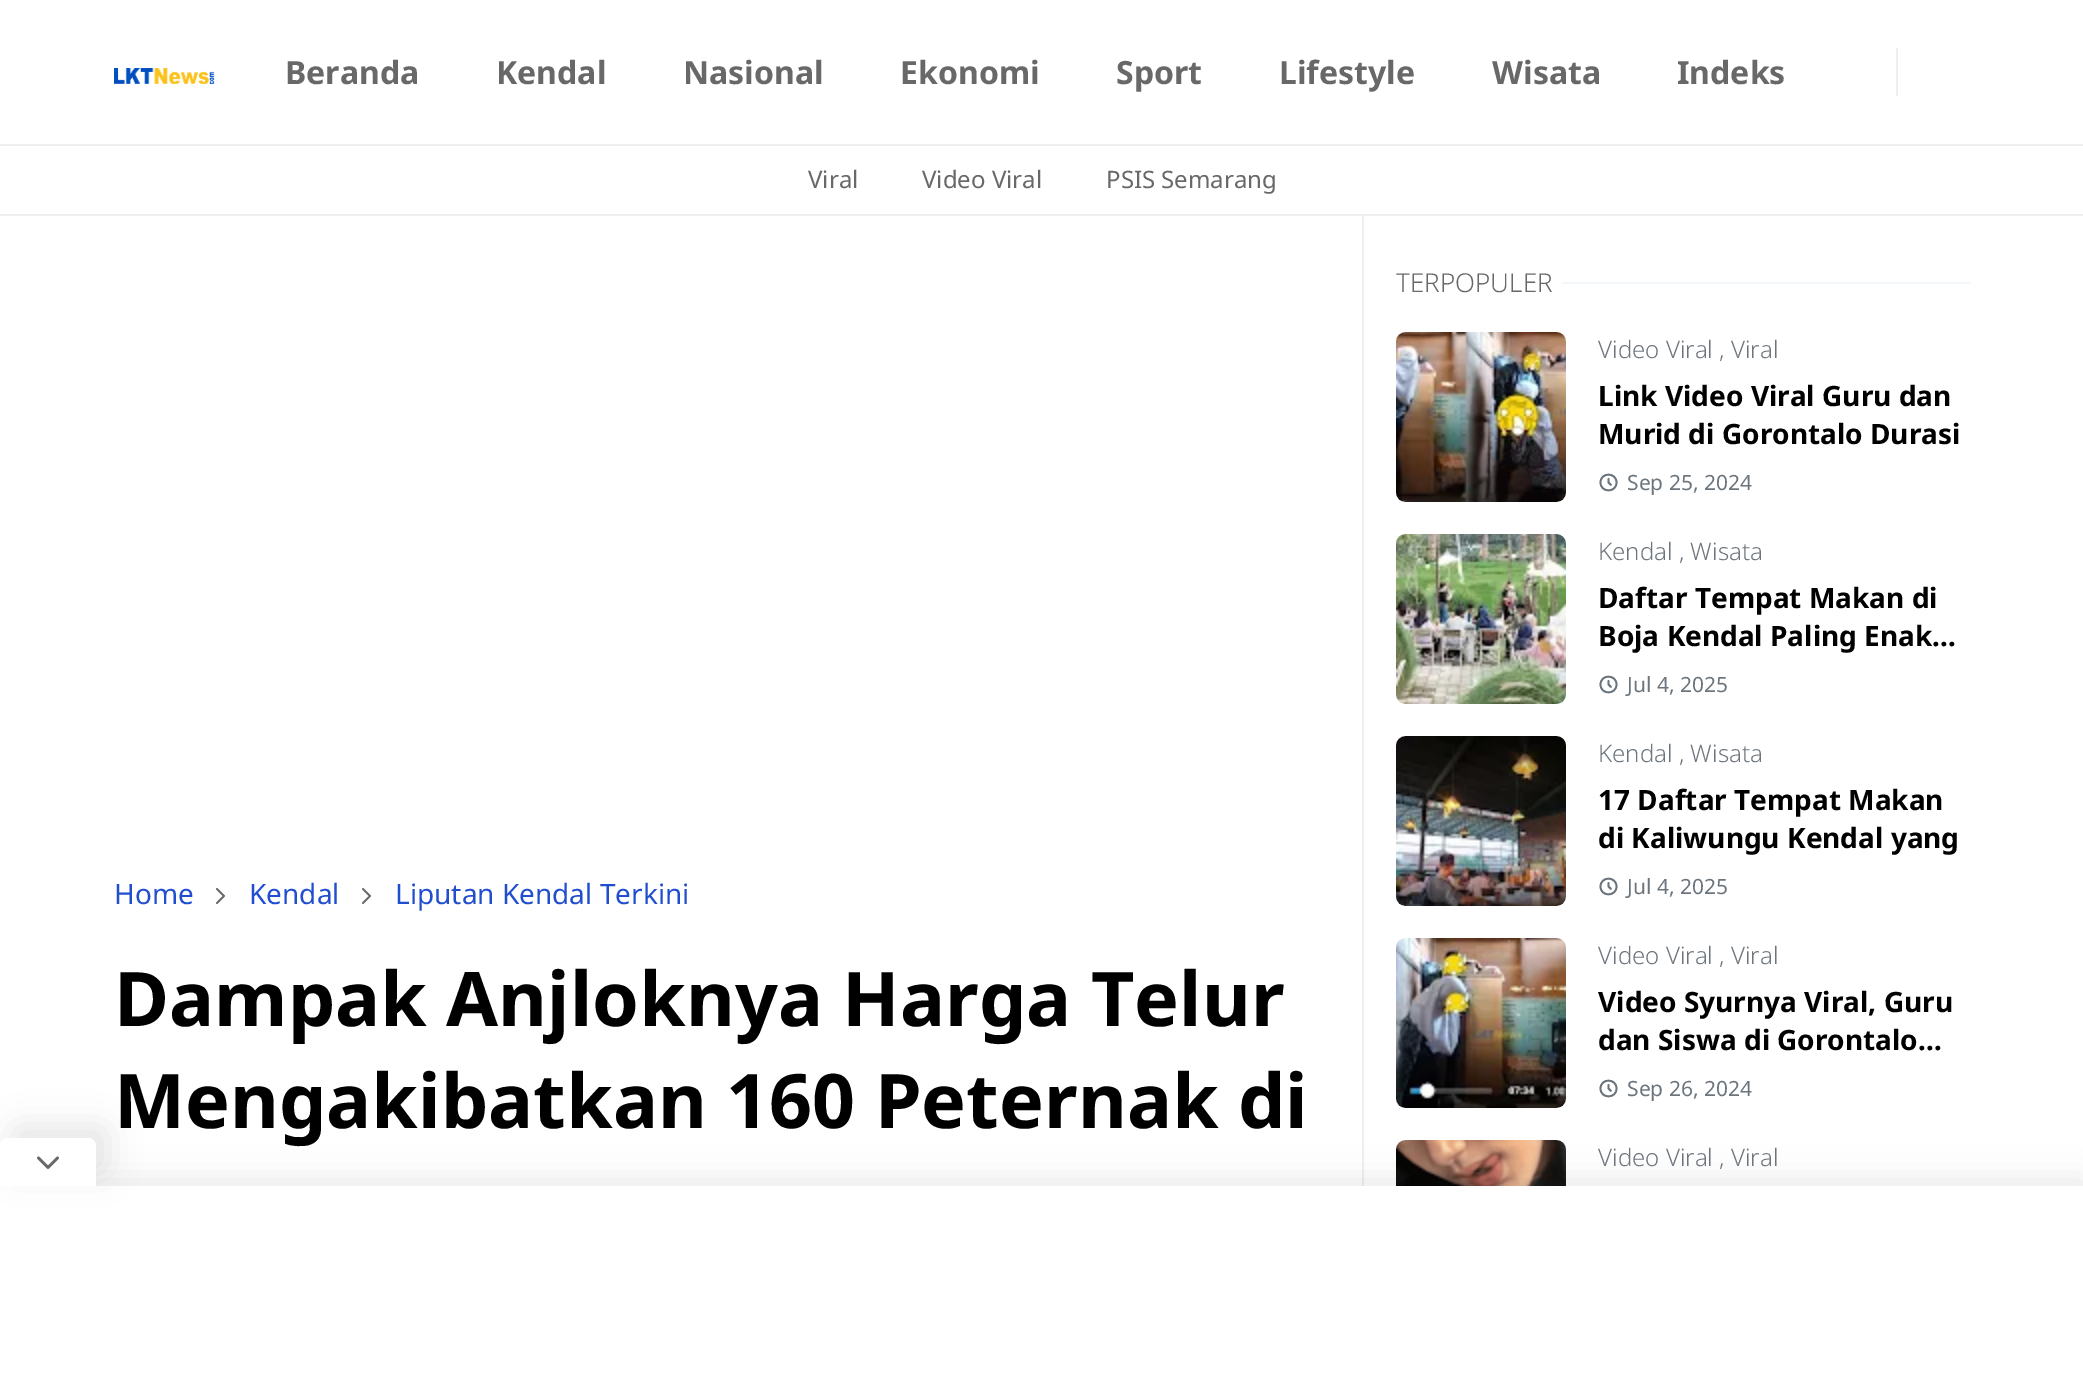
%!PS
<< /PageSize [2083 1378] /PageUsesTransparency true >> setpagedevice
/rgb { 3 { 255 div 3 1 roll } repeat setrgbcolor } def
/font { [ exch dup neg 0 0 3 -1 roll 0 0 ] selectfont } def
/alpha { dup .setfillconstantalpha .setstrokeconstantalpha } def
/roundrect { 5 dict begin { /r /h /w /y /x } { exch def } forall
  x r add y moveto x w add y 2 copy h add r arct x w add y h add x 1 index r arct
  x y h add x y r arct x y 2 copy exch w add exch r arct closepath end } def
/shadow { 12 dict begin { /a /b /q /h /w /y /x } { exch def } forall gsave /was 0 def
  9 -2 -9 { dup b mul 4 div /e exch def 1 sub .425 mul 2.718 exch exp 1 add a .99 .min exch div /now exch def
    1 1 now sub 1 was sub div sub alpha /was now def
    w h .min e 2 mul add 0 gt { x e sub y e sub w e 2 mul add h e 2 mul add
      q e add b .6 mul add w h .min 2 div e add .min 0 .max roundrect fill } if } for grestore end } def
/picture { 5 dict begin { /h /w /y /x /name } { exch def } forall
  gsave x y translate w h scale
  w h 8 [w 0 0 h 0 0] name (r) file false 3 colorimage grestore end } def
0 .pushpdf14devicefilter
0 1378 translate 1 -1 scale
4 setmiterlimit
255 255 255 rgb
0 0 2083 1378 rectfill
239 239 239 rgb
0 144 2083 2 rectfill
(img/1.rgb) 114 68 101 16 picture
1896 48 2 48 rectfill
0 214 2083 2 rectfill
(img/2.rgb) 216 888 9 16 picture
(img/2.rgb) 362 888 9 16 picture
1362 216 2 970 rectfill
243 247 249 rgb
1562 282 408 2 rectfill
1396 332 170 170 10 roundrect fill
(img/3.rgb) 1396 332 170 170 picture
108 117 125 rgb
1.8 setlinewidth
1 setlinecap
1 setlinejoin
1608.5 479 moveto 1608.5 482.5 lineto 1611 485 lineto 1616.5 482.5 moveto 1616.5 493 1600.5 493 1600.5 482.5 curveto 1600.5 472 1616.5 472 1616.5 482.5 curveto closepath stroke
243 247 249 rgb
1396 534 170 170 10 roundrect fill
(img/4.rgb) 1396 534 170 170 picture
108 117 125 rgb
1608.5 681 moveto 1608.5 684.5 lineto 1611 687 lineto 1616.5 684.5 moveto 1616.5 695 1600.5 695 1600.5 684.5 curveto 1600.5 674 1616.5 674 1616.5 684.5 curveto closepath stroke
243 247 249 rgb
1396 736 170 170 10 roundrect fill
(img/5.rgb) 1396 736 170 170 picture
108 117 125 rgb
1608.5 883 moveto 1608.5 886.5 lineto 1611 889 lineto 1616.5 886.5 moveto 1616.5 897 1600.5 897 1600.5 886.5 curveto 1600.5 876 1616.5 876 1616.5 886.5 curveto closepath stroke
243 247 249 rgb
1396 938 170 170 10 roundrect fill
(img/6.rgb) 1396 938 170 170 picture
108 117 125 rgb
1608.5 1085 moveto 1608.5 1088.5 lineto 1611 1091 lineto 1616.5 1088.5 moveto 1616.5 1099 1600.5 1099 1600.5 1088.5 curveto 1600.5 1078 1616.5 1078 1616.5 1088.5 curveto closepath stroke
(img/7.rgb) 1396 1140 170 46 picture
0 0 0 rgb
0 1182 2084 192 0 16 0.1 shadow
255 255 255 rgb
0 1186 2083 192 rectfill
0 0 0 rgb
12 1126 96 48 8 16 0.1 shadow
255 255 255 rgb
8 1138 moveto 88 1138 lineto 92.5 1138 96 1141.5 96 1146 curveto 96 1186 lineto 0 1186 lineto 0 1146 lineto 0 1141.5 3.5 1138 8 1138 curveto closepath fill
104 104 104 rgb
2.7 setlinewidth
57.5 1158 moveto 48 1167.5 lineto 38.5 1158 lineto stroke
/NotoSans-Bold 32 font
[
  [(Beranda) 285 84]
  [(Kendal) 496 84]
  [(Nasional) 683 84]
  [(Ekonomi) 900 84]
  [(Sport) 1116 84]
  [(Lifestyle) 1279 84]
  [(Wisata) 1492 84]
  [(Indeks) 1677 84]
] { aload pop moveto show } forall
/NotoSans-Regular 24 font
[
  [(Viral) 808 188]
  [(Video Viral) 922 188]
  [(PSIS Semarang) 1106 188]
] { aload pop moveto show } forall
/NotoSans-Regular 28 font
32 78 207 rgb
[
  [(Home) 114 904]
  [(Kendal) 249 904]
  [(Liputan Kendal Terkini) 395 904]
] { aload pop moveto show } forall
/NotoSans-Bold 75.25 font
0 0 0 rgb
114 1026 moveto (Dampak Anjloknya Harga Telur) show
114 1128 moveto (Mengakibatkan 160 Peternak di) show
/NotoSans-Light 26 font
104 104 104 rgb
1396 292 moveto (TERPOPULER) show
/NotoSans-Light 24 font
108 117 125 rgb
1598 358 moveto (Video Viral , Viral) show
/NotoSans-Bold 28 font
0 0 0 rgb
1598 406 moveto (Link Video Viral Guru dan) show
1598 444 moveto (Murid di Gorontalo Durasi) show
/NotoSans-Regular 21 font
108 117 125 rgb
1627 490 moveto (Sep 25, 2024) show
/NotoSans-Light 24 font
1598 560 moveto (Kendal , Wisata) show
/NotoSans-Bold 28 font
0 0 0 rgb
1598 608 moveto (Daftar Tempat Makan di) show
1598 646 moveto (Boja Kendal Paling Enak…) show
/NotoSans-Regular 21 font
108 117 125 rgb
1627 692 moveto (Jul 4, 2025) show
/NotoSans-Light 24 font
1598 762 moveto (Kendal , Wisata) show
/NotoSans-Bold 28 font
0 0 0 rgb
1598 810 moveto (17 Daftar Tempat Makan) show
1598 848 moveto (di Kaliwungu Kendal yang) show
/NotoSans-Regular 21 font
108 117 125 rgb
1627 894 moveto (Jul 4, 2025) show
/NotoSans-Light 24 font
1598 964 moveto (Video Viral , Viral) show
/NotoSans-Bold 28 font
0 0 0 rgb
1598 1012 moveto (Video Syurnya Viral, Guru) show
1598 1050 moveto (dan Siswa di Gorontalo…) show
/NotoSans-Regular 21 font
108 117 125 rgb
1627 1096 moveto (Sep 26, 2024) show
/NotoSans-Light 24 font
1598 1166 moveto (Video Viral , Viral) show
.poppdf14devicefilter showpage
